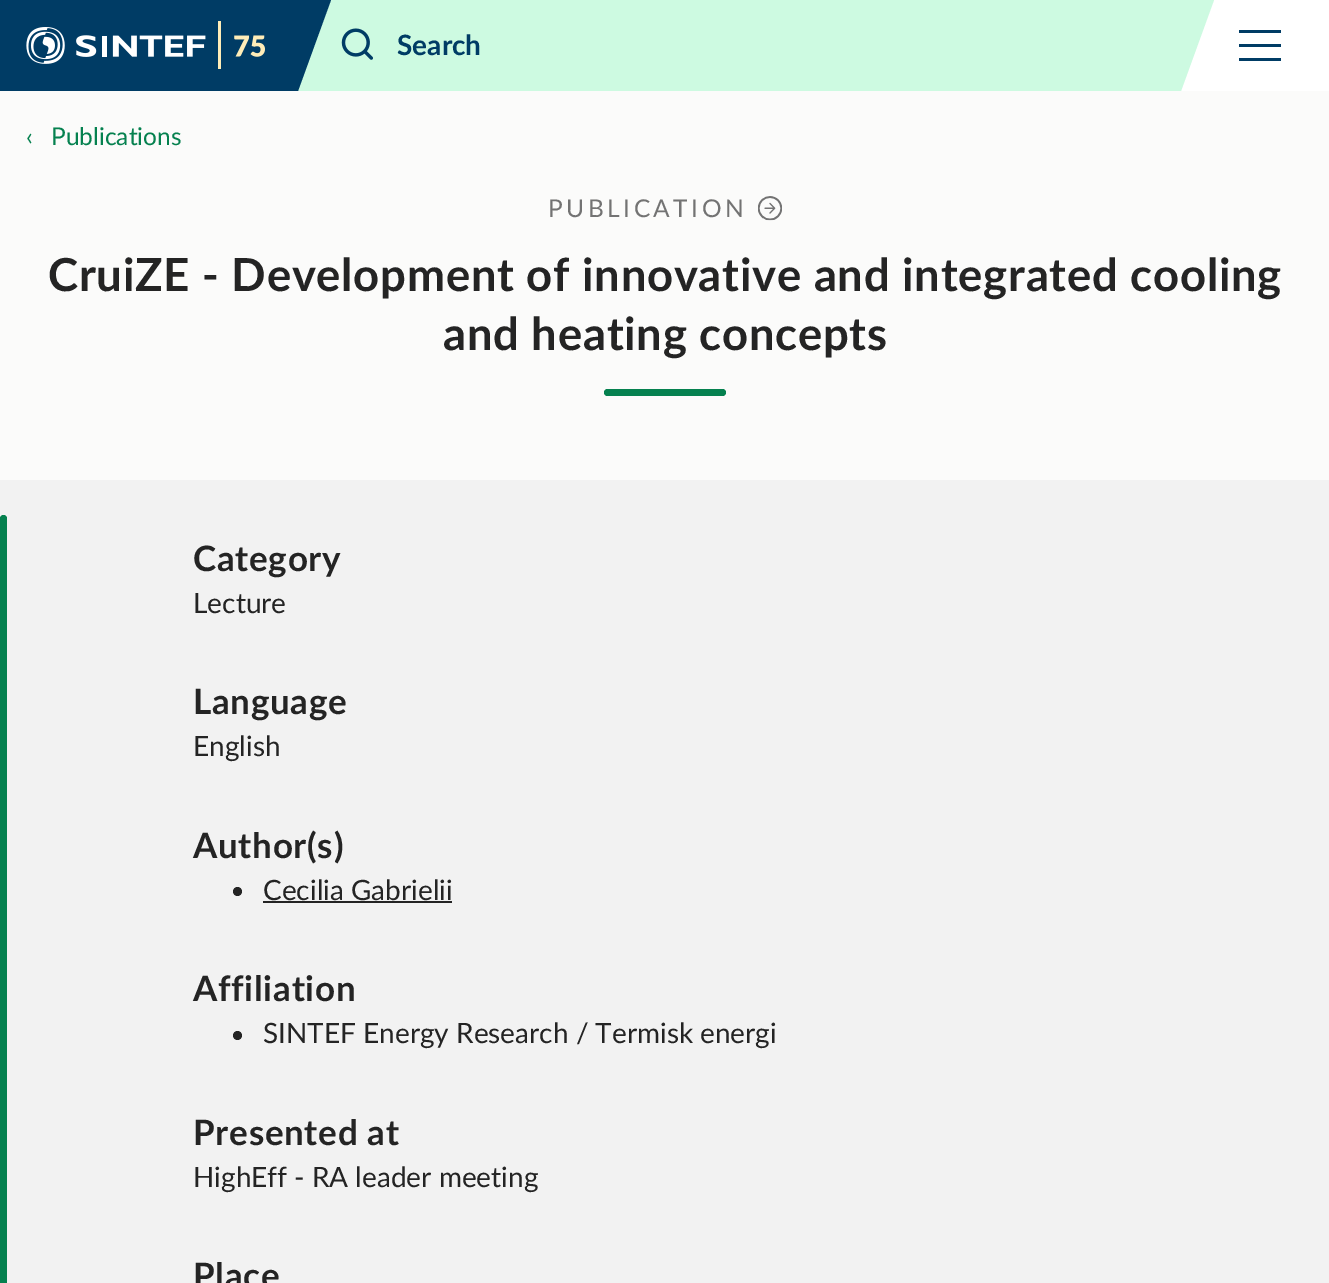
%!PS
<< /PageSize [1329 1283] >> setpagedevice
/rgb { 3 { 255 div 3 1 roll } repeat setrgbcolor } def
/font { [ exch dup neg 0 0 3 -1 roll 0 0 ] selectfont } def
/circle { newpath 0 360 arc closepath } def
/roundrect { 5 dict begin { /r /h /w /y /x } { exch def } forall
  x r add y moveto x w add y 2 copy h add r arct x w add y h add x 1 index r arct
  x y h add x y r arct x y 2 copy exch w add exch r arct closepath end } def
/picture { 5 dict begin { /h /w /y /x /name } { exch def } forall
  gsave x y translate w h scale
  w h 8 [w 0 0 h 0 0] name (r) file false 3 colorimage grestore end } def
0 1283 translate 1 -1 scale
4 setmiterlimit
251 251 250 rgb
0 0 1329 1283 rectfill
255 255 255 rgb
1181 0 148 91 rectfill
205 250 225 rgb
318 0 moveto 1214 0 lineto 1181 91 lineto 285 91 lineto closepath fill
0 60 101 rgb
46 0 moveto 331 0 lineto 298 91 lineto 13 91 lineto closepath fill
0 0 46 91 rectfill
(img/1.rgb) 26 21 239 48 picture
(img/2.rgb) 341 28 32 32 picture
[
  [1239 30 42 3 0 60 101]
  [1239 44 42 3 0 60 101]
  [1239 58 42 3 0 60 101]
] { aload pop rgb rectfill } forall
(img/3.rgb) 758 196 24 25 picture
5 129 79 rgb
604 389 122 7 3.5 roundrect fill
242 242 242 rgb
0 480 1329 803 rectfill
5 129 79 rgb
0 515 7 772 3.5 roundrect fill
36 36 36 rgb
237.5 891.5 4.5 circle fill
263 901 189 2 rectfill
237.5 1035.5 4.5 circle fill
/Lato-Bold 28 font
0 60 101 rgb
397 55 moveto (Search) show
/Lato-Regular 24.5 font
5 129 79 rgb
26 145 moveto (‹) show
51 145 moveto (Publications) show
115 115 115 rgb
548 217 moveto 3.5 0 (PUBLICATION) ashow
/Lato-Bold 45.5 font
36 36 36 rgb
48 291 moveto 0.7 0 (CruiZE - Development of innovative and integrated cooling) ashow
443 350 moveto 0.7 0 (and heating concepts) ashow
/Lato-Bold 35 font
193 571 moveto 0.7 0 (Category) ashow
/Lato-Regular 28 font
193 613 moveto (Lecture) show
/Lato-Bold 35 font
193 714 moveto 0.7 0 (Language) ashow
/Lato-Regular 28 font
193 756 moveto (English) show
/Lato-Bold 35 font
193 858 moveto 0.7 0 (Author\(s\)) ashow
/Lato-Regular 28 font
263 900 moveto (Cecilia Gabrielii) show
/Lato-Bold 35 font
193 1001 moveto 0.7 0 (Affiliation) ashow
/Lato-Regular 28 font
263 1043 moveto (SINTEF Energy Research / Termisk energi) show
/Lato-Bold 35 font
193 1145 moveto 0.7 0 (Presented at) ashow
/Lato-Regular 28 font
193 1187 moveto (HighEff - RA leader meeting) show
/Lato-Bold 35 font
193 1288 moveto 0.7 0 (Place) ashow
showpage
